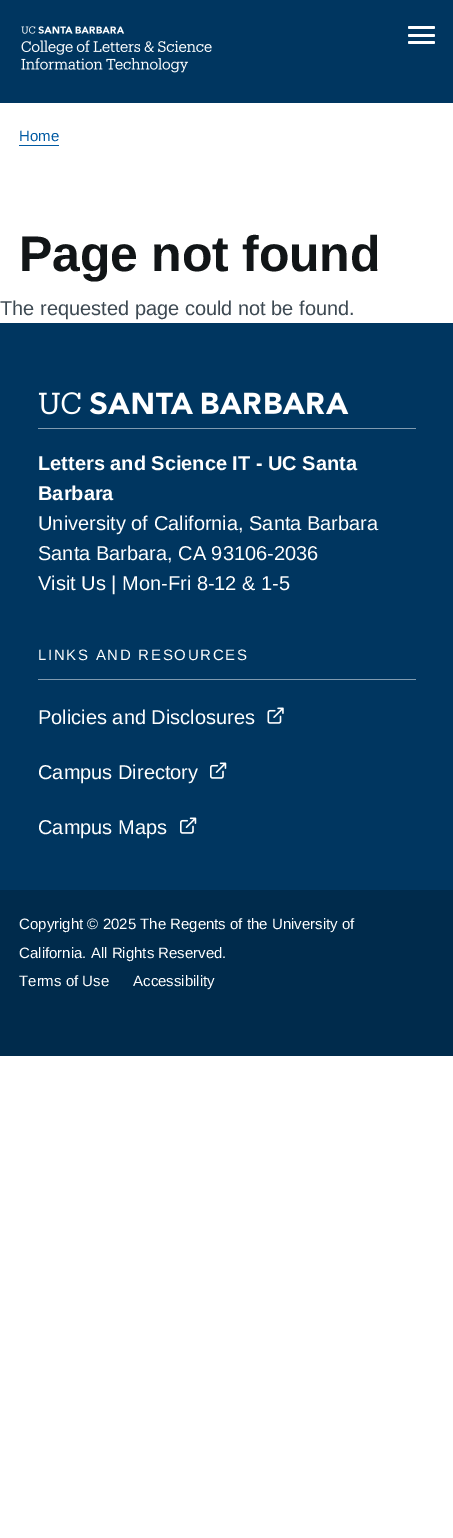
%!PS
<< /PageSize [453 1538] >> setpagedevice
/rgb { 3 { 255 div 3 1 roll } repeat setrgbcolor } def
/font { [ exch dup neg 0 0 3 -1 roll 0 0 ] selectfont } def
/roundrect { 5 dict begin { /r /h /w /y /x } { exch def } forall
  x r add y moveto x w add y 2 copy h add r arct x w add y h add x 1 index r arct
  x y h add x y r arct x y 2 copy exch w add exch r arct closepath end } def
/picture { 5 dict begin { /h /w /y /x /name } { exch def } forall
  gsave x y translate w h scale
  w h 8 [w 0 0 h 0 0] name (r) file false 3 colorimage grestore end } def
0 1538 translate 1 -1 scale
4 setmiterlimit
255 255 255 rgb
0 0 453 1538 rectfill
0 54 96 rgb
0 0 453 103 rectfill
(img/1.rgb) 21 26 191 47 picture
255 255 255 rgb
408 26 27 3 1.5 roundrect fill
408 34 27 3 1.5 roundrect fill
408 41 27 3 1.5 roundrect fill
[
  [19 145 40 1 0 90 163]
  [0 323 453 567 0 54 96]
  [38 428 378 1 128 155 176]
] { aload pop rgb rectfill } forall
(img/2.rgb) 38 392 311 23 picture
38 679 378 1 rectfill
(img/3.rgb) 267 707 17 17 picture
(img/4.rgb) 210 762 17 17 picture
(img/4.rgb) 180 817 17 17 picture
0 43 76 rgb
0 890 453 166 rectfill
/LiberationSans-Regular 15 font
0 90 163 rgb
19 141 moveto (Home) show
/LiberationSans-Bold 50 font
17 21 23 rgb
19 271 moveto -0.2 0 (Page not found) ashow
/LiberationSans-Regular 20 font
61 73 82 rgb
0 315 moveto (The requested page could not be found.) show
/LiberationSans-Bold 20 font
255 255 255 rgb
38 470 moveto (Letters and Science IT - UC Santa) show
38 500 moveto (Barbara) show
/LiberationSans-Regular 20 font
[
  [(University of California, Santa Barbara) 38 530]
  [(Santa Barbara, CA 93106-2036) 38 560]
  [(Visit Us | Mon-Fri 8-12 & 1-5) 38 590]
] { aload pop moveto show } forall
/LiberationSans-Regular 15 font
38 660 moveto 1.7 0 (LINKS AND RESOURCES) ashow
/LiberationSans-Regular 20 font
[
  [(Policies and Disclosures) 38 724]
  [(Campus Directory) 38 779]
  [(Campus Maps) 38 834]
] { aload pop moveto show } forall
/LiberationSans-Regular 15 font
[
  [(Copyright © 2025 The Regents of the University of) 19 929]
  [(California. All Rights Reserved.) 19 958]
  [(Terms of Use) 19 986]
  [(Accessibility) 133 986]
] { aload pop moveto show } forall
showpage
